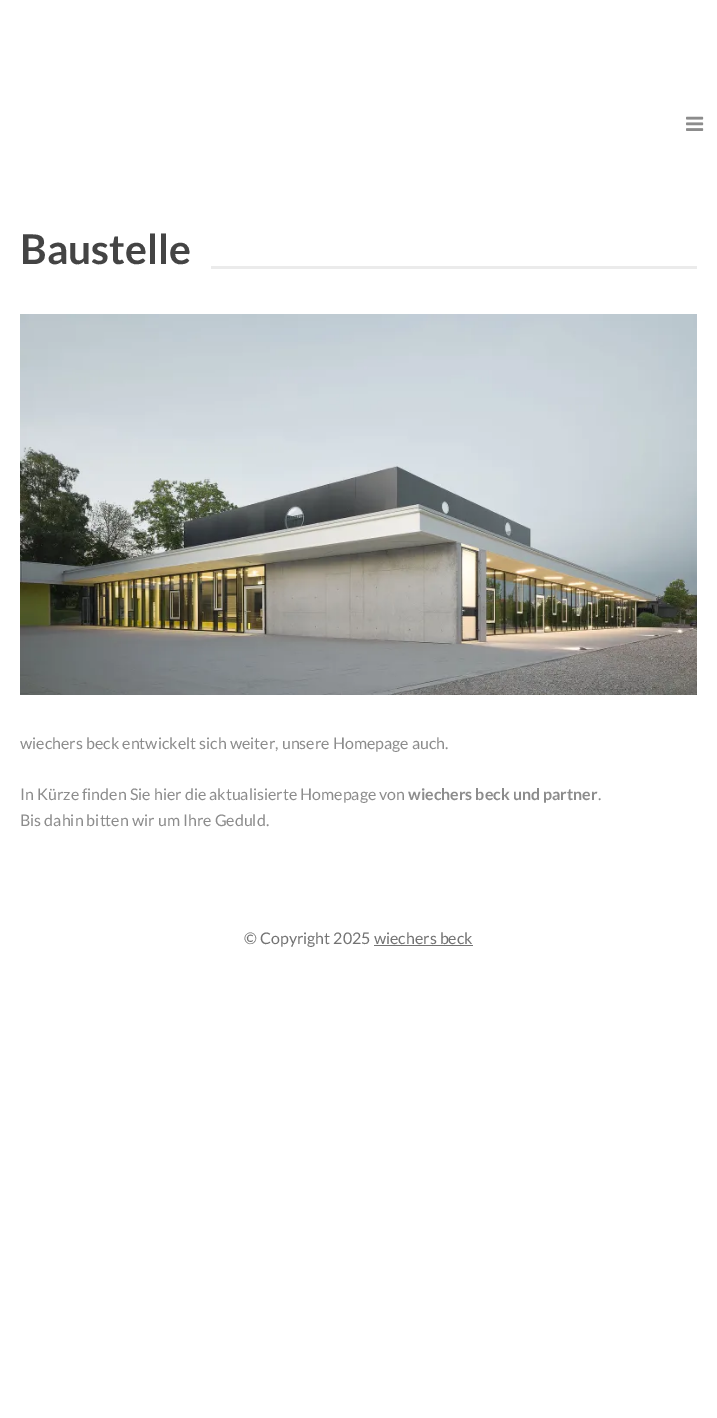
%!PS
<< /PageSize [717 1418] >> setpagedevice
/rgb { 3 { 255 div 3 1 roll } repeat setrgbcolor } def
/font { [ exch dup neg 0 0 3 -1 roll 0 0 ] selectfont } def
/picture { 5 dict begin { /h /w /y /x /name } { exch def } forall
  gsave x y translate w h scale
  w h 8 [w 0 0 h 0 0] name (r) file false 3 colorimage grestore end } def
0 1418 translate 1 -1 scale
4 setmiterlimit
255 255 255 rgb
0 0 717 1418 rectfill
(img/1.rgb) 686 116 18 15 picture
235 235 235 rgb
211 266 486 3 rectfill
(img/2.rgb) 20 314 677 381 picture
115 115 115 rgb
374 945 99 1 rectfill
/Lato-Bold 41 font
68 68 68 rgb
20 264 moveto (Baustelle) show
/Lato-Regular 16 font
140 140 140 rgb
20 749 moveto (wiechers beck entwickelt sich weiter, unsere Homepage auch.) show
20 800 moveto (In Kürze finden Sie hier die aktualisierte Homepage von) show
/Lato-Bold 16 font
408 800 moveto (wiechers beck und partner) show
/Lato-Regular 16 font
598 800 moveto (.) show
20 826 moveto (Bis dahin bitten wir um Ihre Geduld.) show
115 115 115 rgb
244 944 moveto (© Copyright 2025 wiechers beck) show
showpage
